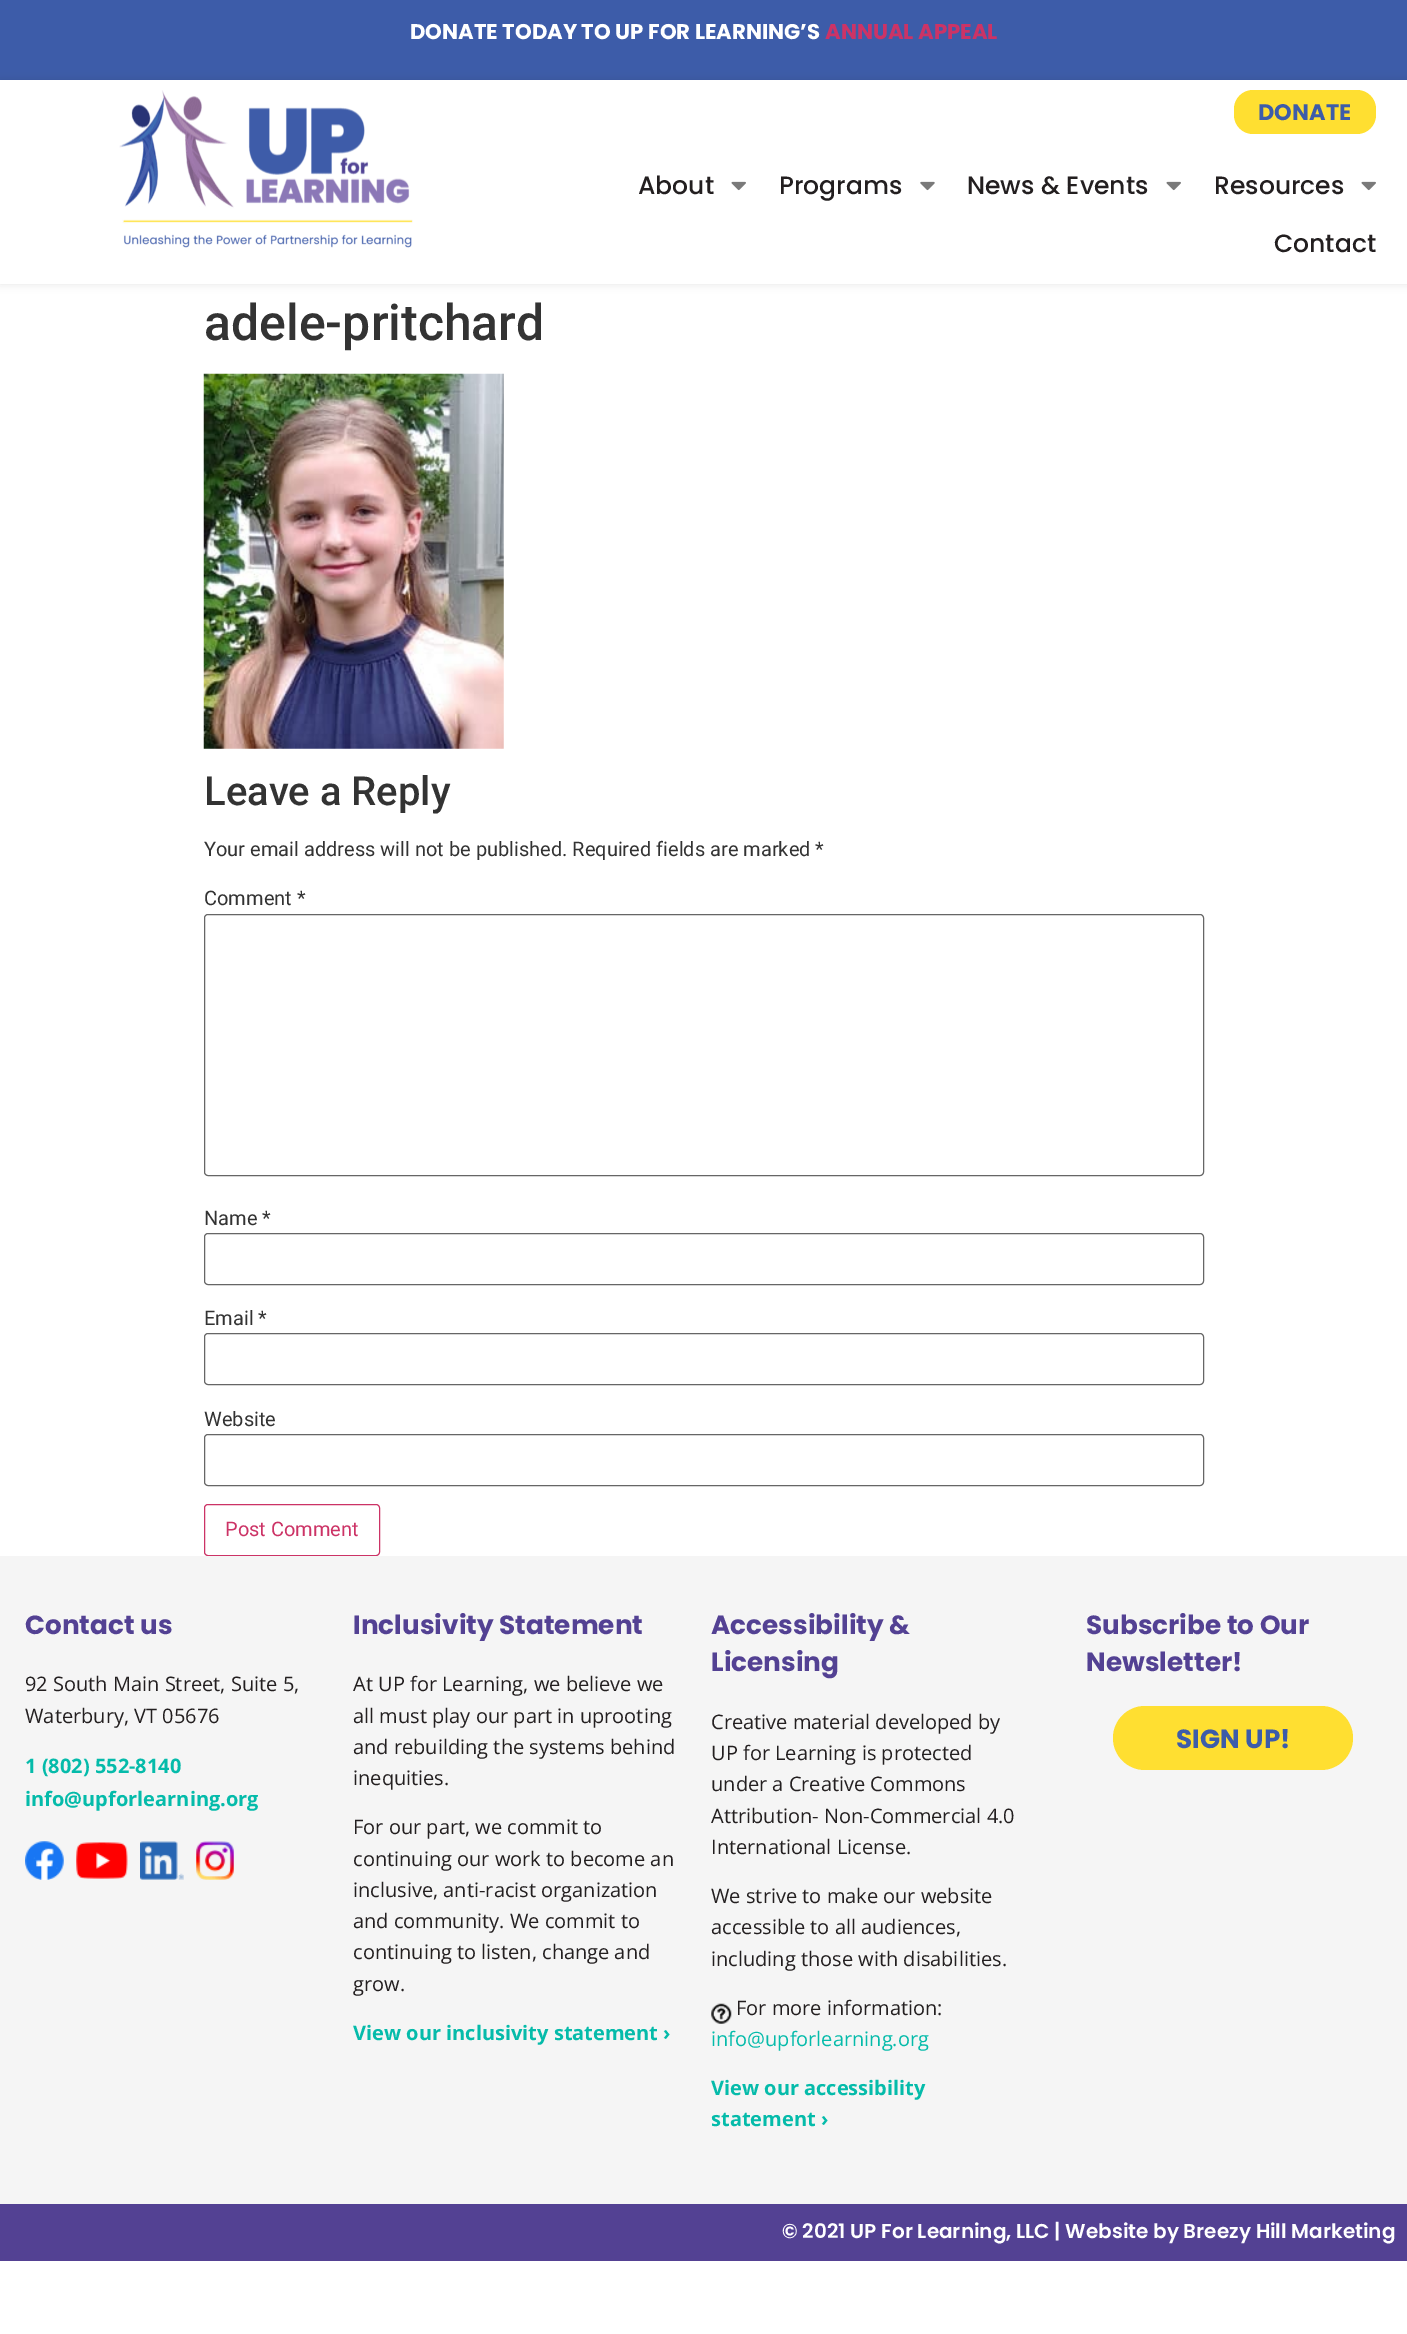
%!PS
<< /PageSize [1407 2334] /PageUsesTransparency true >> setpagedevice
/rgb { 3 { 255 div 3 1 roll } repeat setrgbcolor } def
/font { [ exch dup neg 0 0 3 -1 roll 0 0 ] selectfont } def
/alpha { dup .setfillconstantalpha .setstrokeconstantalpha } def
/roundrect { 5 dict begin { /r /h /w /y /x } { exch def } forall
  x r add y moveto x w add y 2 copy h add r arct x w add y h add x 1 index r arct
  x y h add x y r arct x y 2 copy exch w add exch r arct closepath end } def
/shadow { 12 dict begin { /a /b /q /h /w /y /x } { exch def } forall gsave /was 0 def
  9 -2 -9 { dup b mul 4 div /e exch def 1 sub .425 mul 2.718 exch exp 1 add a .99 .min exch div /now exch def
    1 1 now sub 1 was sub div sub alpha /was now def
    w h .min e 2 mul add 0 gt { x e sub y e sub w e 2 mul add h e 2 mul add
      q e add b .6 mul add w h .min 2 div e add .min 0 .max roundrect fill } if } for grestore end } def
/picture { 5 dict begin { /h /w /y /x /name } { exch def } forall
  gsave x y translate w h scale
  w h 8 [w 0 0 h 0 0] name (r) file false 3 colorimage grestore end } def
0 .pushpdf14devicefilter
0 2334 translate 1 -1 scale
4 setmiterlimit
255 255 255 rgb
0 0 1407 2334 rectfill
61 92 169 rgb
0 0 1407 80 rectfill
0 0 0 rgb
0 80 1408 204 0 4.5 0.1 shadow
255 255 255 rgb
0 80 1407 204 rectfill
(img/1.rgb) 119 90 294 158 picture
255 223 49 rgb
1234 90 142 44 19 roundrect fill
(img/2.rgb) 731 181 15 10 picture
(img/3.rgb) 920 181 15 10 picture
(img/2.rgb) 1166 181 15 10 picture
(img/2.rgb) 1361 181 15 10 picture
(img/4.rgb) 203 373 301 376 picture
102 102 102 rgb
204.5 914.5 999 261 3.5 roundrect stroke
204.5 1233.5 999 51 3.5 roundrect stroke
204.5 1333.5 999 51 3.5 roundrect stroke
204.5 1434.5 999 51 3.5 roundrect stroke
204 51 102 rgb
204.5 1504.5 175 51 3.5 roundrect stroke
245 245 245 rgb
0 1556 1407 648 rectfill
(img/5.rgb) 25 1841 39 39 picture
(img/6.rgb) 76 1842 52 37 picture
(img/7.rgb) 140 1841 44 39 picture
(img/8.rgb) 196 1841 38 39 picture
(img/9.rgb) 711 2003 21 21 picture
255 223 49 rgb
1113 1706 240 64 32 roundrect fill
83 65 147 rgb
0 2204 1407 57 rectfill
/Poppins-Bold 21.25 font
255 255 255 rgb
410 39 moveto (DONATE TODAY TO UP FOR LEARNING’S) show
204 51 102 rgb
825 39 moveto (ANNUAL APPEAL) show
/Poppins-Bold 22.5 font
61 92 169 rgb
1258 120 moveto (DONATE) show
/Poppins-Medium 25 font
35 31 32 rgb
[
  [(About) 638 194]
  [(Programs) 779 194]
  [(News & Events) 967 194]
  [(Resources) 1214 194]
  [(Contact) 1274 252]
] { aload pop moveto show } forall
/Roboto-Medium 50 font
51 51 51 rgb
204 340 moveto (adele-pritchard) show
/Roboto-Medium 40 font
204 805 moveto (Leave a Reply) show
/Roboto-Regular 20 font
[
  [(Your email address will not be published. Required fields are marked *) 204 856]
  [(Comment *) 204 905]
  [(Name *) 204 1225]
  [(Email *) 204 1325]
  [(Website) 204 1426]
] { aload pop moveto show } forall
204 51 102 rgb
225 1536 moveto (Post Comment) show
/Poppins-Bold 26.25 font
83 65 147 rgb
25 1634 moveto (Contact us) show
/OpenSans-Regular 20 font
35 31 32 rgb
25 1691 moveto (92 South Main Street, Suite 5,) show
25 1723 moveto (Waterbury, VT 05676) show
/OpenSans-Bold 20 font
5 187 170 rgb
25 1773 moveto (1 \(802\) 552-8140) show
25 1806 moveto (info@upforlearning.org) show
/Poppins-Bold 26.25 font
83 65 147 rgb
353 1634 moveto (Inclusivity Statement) show
/OpenSans-Regular 20 font
35 31 32 rgb
[
  [(At UP for Learning, we believe we) 353 1691]
  [(all must play our part in uprooting) 353 1723]
  [(and rebuilding the systems behind) 353 1754]
  [(inequities.) 353 1785]
  [(For our part, we commit to) 353 1834]
  [(continuing our work to become an) 353 1866]
  [(inclusive, anti-racist organization) 353 1897]
  [(and community. We commit to) 353 1928]
  [(continuing to listen, change and) 353 1959]
  [(grow.) 353 1991]
] { aload pop moveto show } forall
/OpenSans-Bold 20 font
5 187 170 rgb
353 2040 moveto (View our inclusivity statement ›) show
/Poppins-Bold 26.25 font
83 65 147 rgb
711 1634 moveto (Accessibility &) show
711 1671 moveto (Licensing) show
/OpenSans-Regular 20 font
35 31 32 rgb
[
  [(Creative material developed by) 711 1729]
  [(UP for Learning is protected) 711 1760]
  [(under a Creative Commons) 711 1791]
  [(Attribution- Non-Commercial 4.0) 711 1823]
  [(International License.) 711 1854]
  [(We strive to make our website) 711 1903]
  [(accessible to all audiences,) 711 1934]
  [(including those with disabilities.) 711 1966]
  [(For more information:) 736 2015]
] { aload pop moveto show } forall
5 187 170 rgb
711 2046 moveto (info@upforlearning.org) show
/OpenSans-Bold 20 font
711 2095 moveto (View our accessibility) show
711 2126 moveto (statement ›) show
/Poppins-Bold 26.25 font
83 65 147 rgb
1086 1634 moveto (Subscribe to Our) show
1086 1671 moveto (Newsletter!) show
61 92 169 rgb
1176 1748 moveto (SIGN UP!) show
/Poppins-SemiBold 20 font
255 255 255 rgb
782 2238 moveto (© 2021 UP For Learning, LLC | Website by Breezy Hill Marketing) show
.poppdf14devicefilter showpage
